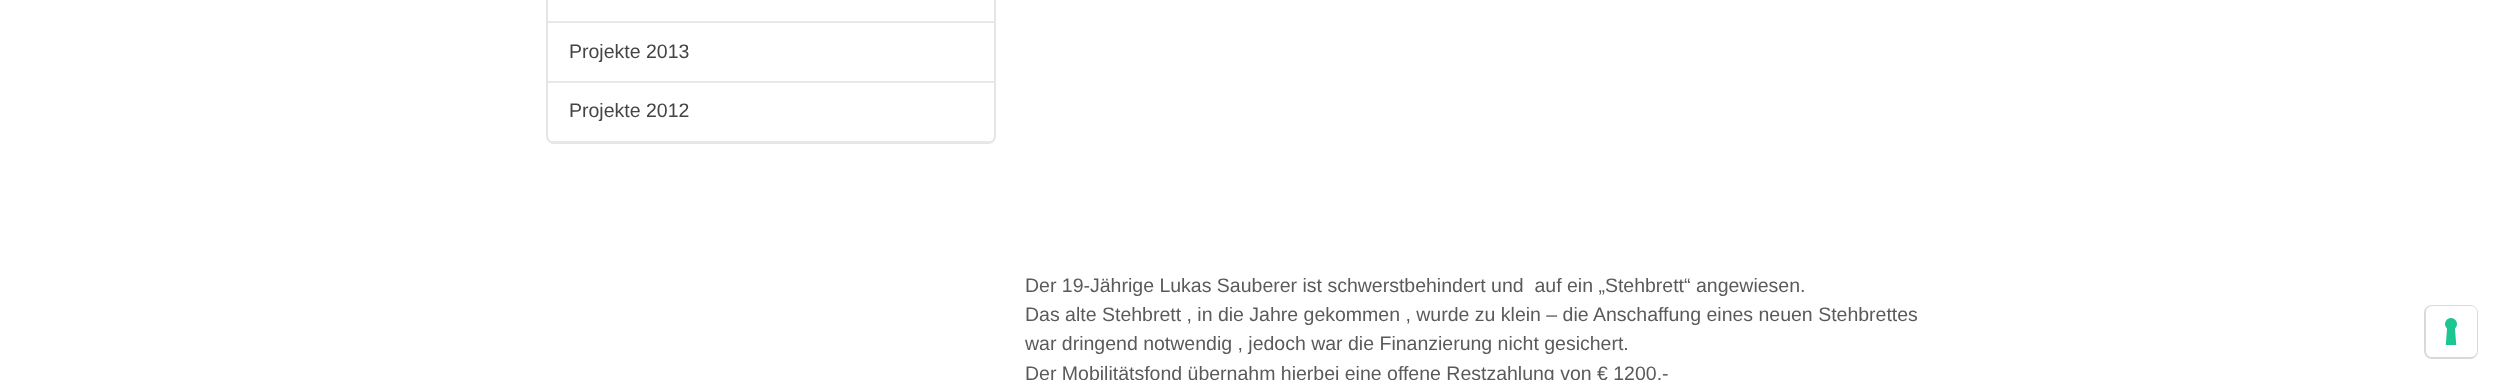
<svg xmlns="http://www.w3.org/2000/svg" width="2500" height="380">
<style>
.a{font:19.5px Liberation Sans;fill:#444}
.b{font:19.5px Liberation Sans;fill:#5a5a5a}
</style>
<defs>
<clipPath id="clip1"><rect x="548" y="-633" width="447" height="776" rx="6"/></clipPath>
</defs>
<rect width="100%" height="100%" fill="#fff"/>
<rect fill="none" stroke="#e5e5e5" stroke-width="2" x="547" y="-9" width="448" height="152" rx="7"/>
<path fill="#e8e8e8" d="M548 21h447v2H548z"/>
<path fill="#e8e8e8" d="M548 81h447v2H548z"/>
<g clip-path="url(#clip1)">
<path fill="#e8e8e8" d="M548 141h447v2H548z"/>
</g>
<rect fill="none" stroke="#d9d9d9" stroke-width="2" x="2425" y="306" width="52" height="52" rx="7"/>
<rect fill="#fff" x="2426" y="306" width="51" height="51" rx="6"/>
<image href="1.png" x="2445" y="318" width="12" height="27"/>
<text class="a" x="569" y="58">Projekte 2013</text>
<text class="a" x="569" y="117">Projekte 2012</text>
<text class="b" xml:space="preserve" x="1025" y="292">Der 19-Jährige Lukas Sauberer ist schwerstbehindert und  auf ein „Stehbrett“ angewiesen.</text>
<text class="b" x="1025" y="321">Das alte Stehbrett , in die Jahre gekommen , wurde zu klein – die Anschaffung eines neuen Stehbrettes</text>
<text class="b" x="1025" y="350">war dringend notwendig , jedoch war die Finanzierung nicht gesichert.</text>
<text class="b" x="1025" y="380">Der Mobilitätsfond übernahm hierbei eine offene Restzahlung von € 1200.-</text>
</svg>
